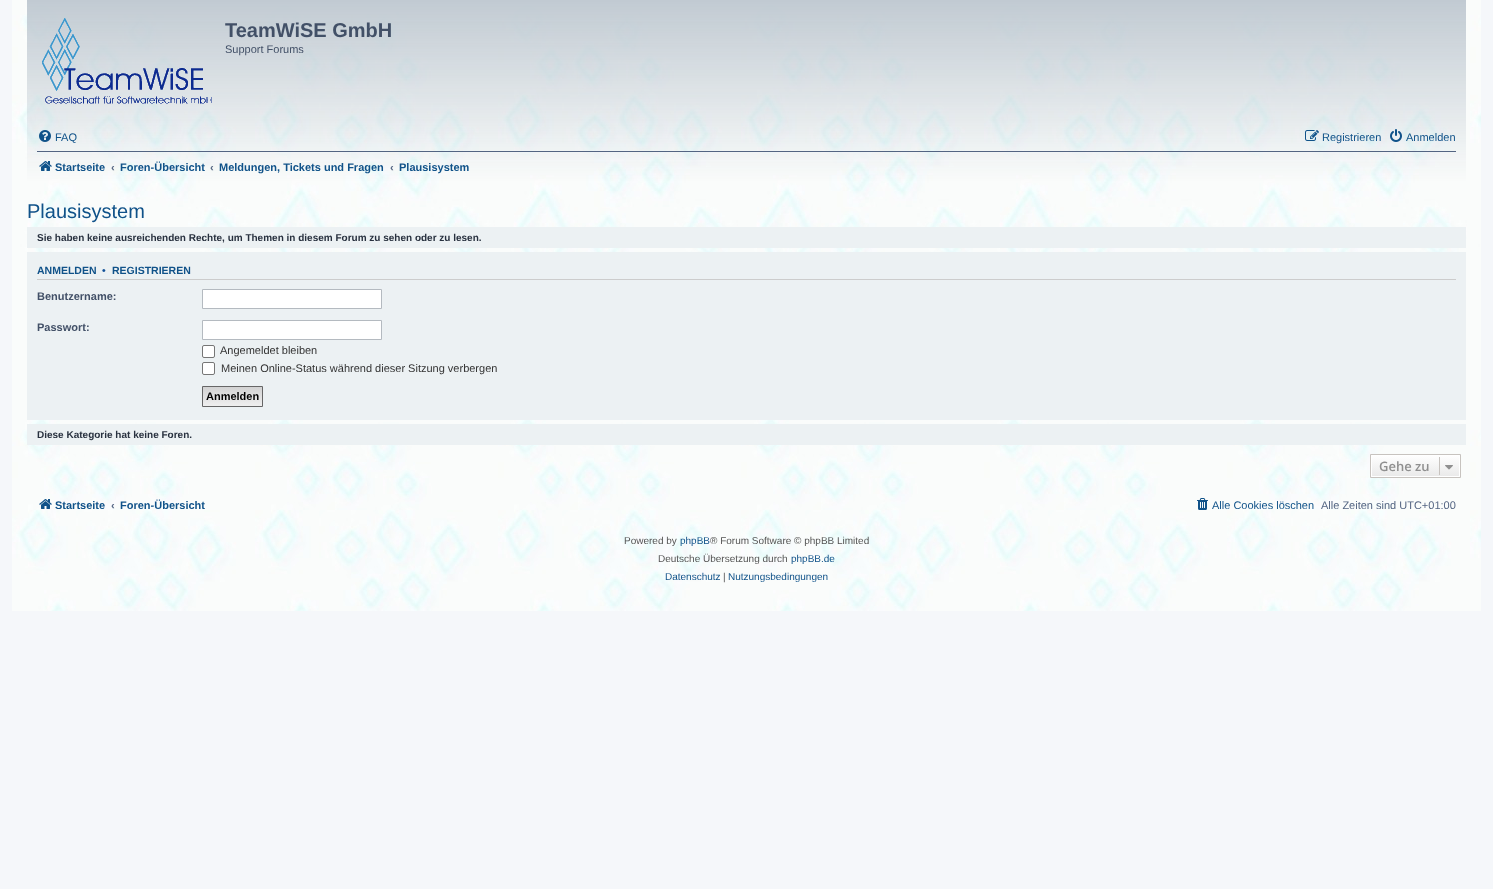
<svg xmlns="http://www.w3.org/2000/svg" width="1493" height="889">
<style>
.a{font:bold 20px Liberation Sans;fill:#425067}
.b{font:11px Liberation Sans;fill:#425067}
.c{font:11px Liberation Sans;fill:#105289}
.d{font:bold 11px Liberation Sans;fill:#105289}
.e{font:bold 11px Liberation Sans;fill:#536482}
.f{font:20px Liberation Sans;fill:#105289}
.g{font:bold 10px Liberation Sans;fill:#28313f}
.h{font:bold 10.5px Liberation Sans;fill:#105289}
.i{font:bold 10.5px Liberation Sans;fill:#115098}
.j{font:bold 11px Liberation Sans;fill:#425067}
.k{font:11px Liberation Sans;fill:#333}
.l{font:bold 11px Liberation Sans;fill:#000}
.m{font:600 13px Open Sans;fill:#8f8f8f}
.n{font:11px Liberation Sans;fill:#536482}
.o{font:10px Liberation Sans;fill:#555}
.p{font:10px Liberation Sans;fill:#105289}
</style>
<defs>
<linearGradient id="g1" gradientUnits="userSpaceOnUse" x1="233" y1="387" x2="233" y2="406"><stop offset="0" stop-color="#d2d2d2"/><stop offset="1" stop-color="#efefef"/></linearGradient>
<linearGradient id="g2" gradientUnits="userSpaceOnUse" x1="1416" y1="455" x2="1416" y2="477"><stop offset="0" stop-color="#fff"/><stop offset="1" stop-color="#e9e9e9"/></linearGradient>
</defs>
<rect width="100%" height="100%" fill="#f5f7fa"/>
<image href="1.png" x="12" y="0" width="1469" height="611"/>
<image href="2.png" x="42" y="18" width="170" height="86"/>
<image href="3.png" x="39" y="130" width="12" height="12"/>
<image href="4.png" x="1305" y="130" width="14" height="11"/>
<image href="5.png" x="1390" y="129" width="12" height="13"/>
<path fill="#536482" d="M37 151h1419v1H37z"/>
<image href="6.png" x="39" y="161" width="13" height="10"/>
<path fill="#ecf1f3" d="M27 227h1439v21H27z"/>
<path fill="#ecf1f3" d="M27 252h1439v168H27z"/>
<path fill="#ccc" d="M37 279h1419v1H37z"/>
<path fill="#fff" stroke="#b4bac0" d="M202.5 289.5h179v19H202.5z"/>
<path fill="#fff" stroke="#b4bac0" d="M202.5 320.5h179v19H202.5z"/>
<rect fill="#fff" stroke="#767676" x="202.5" y="345.5" width="12" height="12" rx="1.5"/>
<rect fill="#fff" stroke="#767676" x="202.5" y="362.5" width="12" height="12" rx="1.5"/>
<path fill="url(#g1)" d="M203 387h59v19H203z"/>
<path fill="none" stroke="#666" d="M202.5 386.5h60v20H202.5z"/>
<path fill="#ecf1f3" d="M27 424h1439v21H27z"/>
<path fill="url(#g2)" d="M1372 456h87v20H1372z"/>
<path fill="none" stroke="#fff" d="M1371.5 455.5h88v21H1371.5z"/>
<path fill="none" stroke="#c7c3bf" d="M1370.5 454.5h90v23H1370.5z"/>
<path fill="#c7c3bf" d="M1439 457h1v18H1439z"/>
<image href="7.png" x="1445" y="465" width="8" height="5"/>
<image href="8.png" x="39" y="499" width="13" height="10"/>
<image href="9.png" x="1197" y="498" width="11" height="12"/>
<text class="a" x="225" y="37">TeamWiSE GmbH</text>
<text class="b" x="225" y="53">Support Forums</text>
<text class="c" x="55" y="141">FAQ</text>
<text class="c" x="1322" y="141">Registrieren</text>
<text class="c" x="1406" y="141">Anmelden</text>
<text class="d" x="55" y="171">Startseite</text>
<text class="e" x="111" y="171">‹</text>
<text class="d" x="120" y="171">Foren-Übersicht</text>
<text class="e" x="210" y="171">‹</text>
<text class="d" x="219" y="171">Meldungen, Tickets und Fragen</text>
<text class="e" x="390" y="171">‹</text>
<text class="d" x="399" y="171">Plausisystem</text>
<text class="f" x="27" y="218">Plausisystem</text>
<text class="g" x="37" y="241">Sie haben keine ausreichenden Rechte, um Themen in diesem Forum zu sehen oder zu lesen.</text>
<text class="h" x="37" y="274">ANMELDEN</text>
<text class="i" x="102" y="274">•</text>
<text class="h" x="112" y="274">REGISTRIEREN</text>
<text class="j" x="37" y="300">Benutzername:</text>
<text class="j" x="37" y="331">Passwort:</text>
<text class="k" x="220" y="354">Angemeldet bleiben</text>
<text class="k" x="221" y="372">Meinen Online-Status während dieser Sitzung verbergen</text>
<text class="l" x="206" y="400">Anmelden</text>
<text class="g" x="37" y="438">Diese Kategorie hat keine Foren.</text>
<text class="m" x="1379" y="471">Gehe zu</text>
<text class="d" x="55" y="509">Startseite</text>
<text class="e" x="111" y="509">‹</text>
<text class="d" x="120" y="509">Foren-Übersicht</text>
<text class="c" x="1212" y="509">Alle Cookies löschen</text>
<text class="n" x="1321" y="509">Alle Zeiten sind UTC+01:00</text>
<text class="o" x="624" y="544">Powered by</text>
<text class="p" x="680" y="544">phpBB</text>
<text class="o" x="710" y="544">® Forum Software © phpBB Limited</text>
<text class="o" x="658" y="562">Deutsche Übersetzung durch</text>
<text class="p" x="791" y="562">phpBB.de</text>
<text class="p" x="665" y="580">Datenschutz</text>
<text class="o" x="723" y="580">|</text>
<text class="p" x="728" y="580">Nutzungsbedingungen</text>
</svg>
